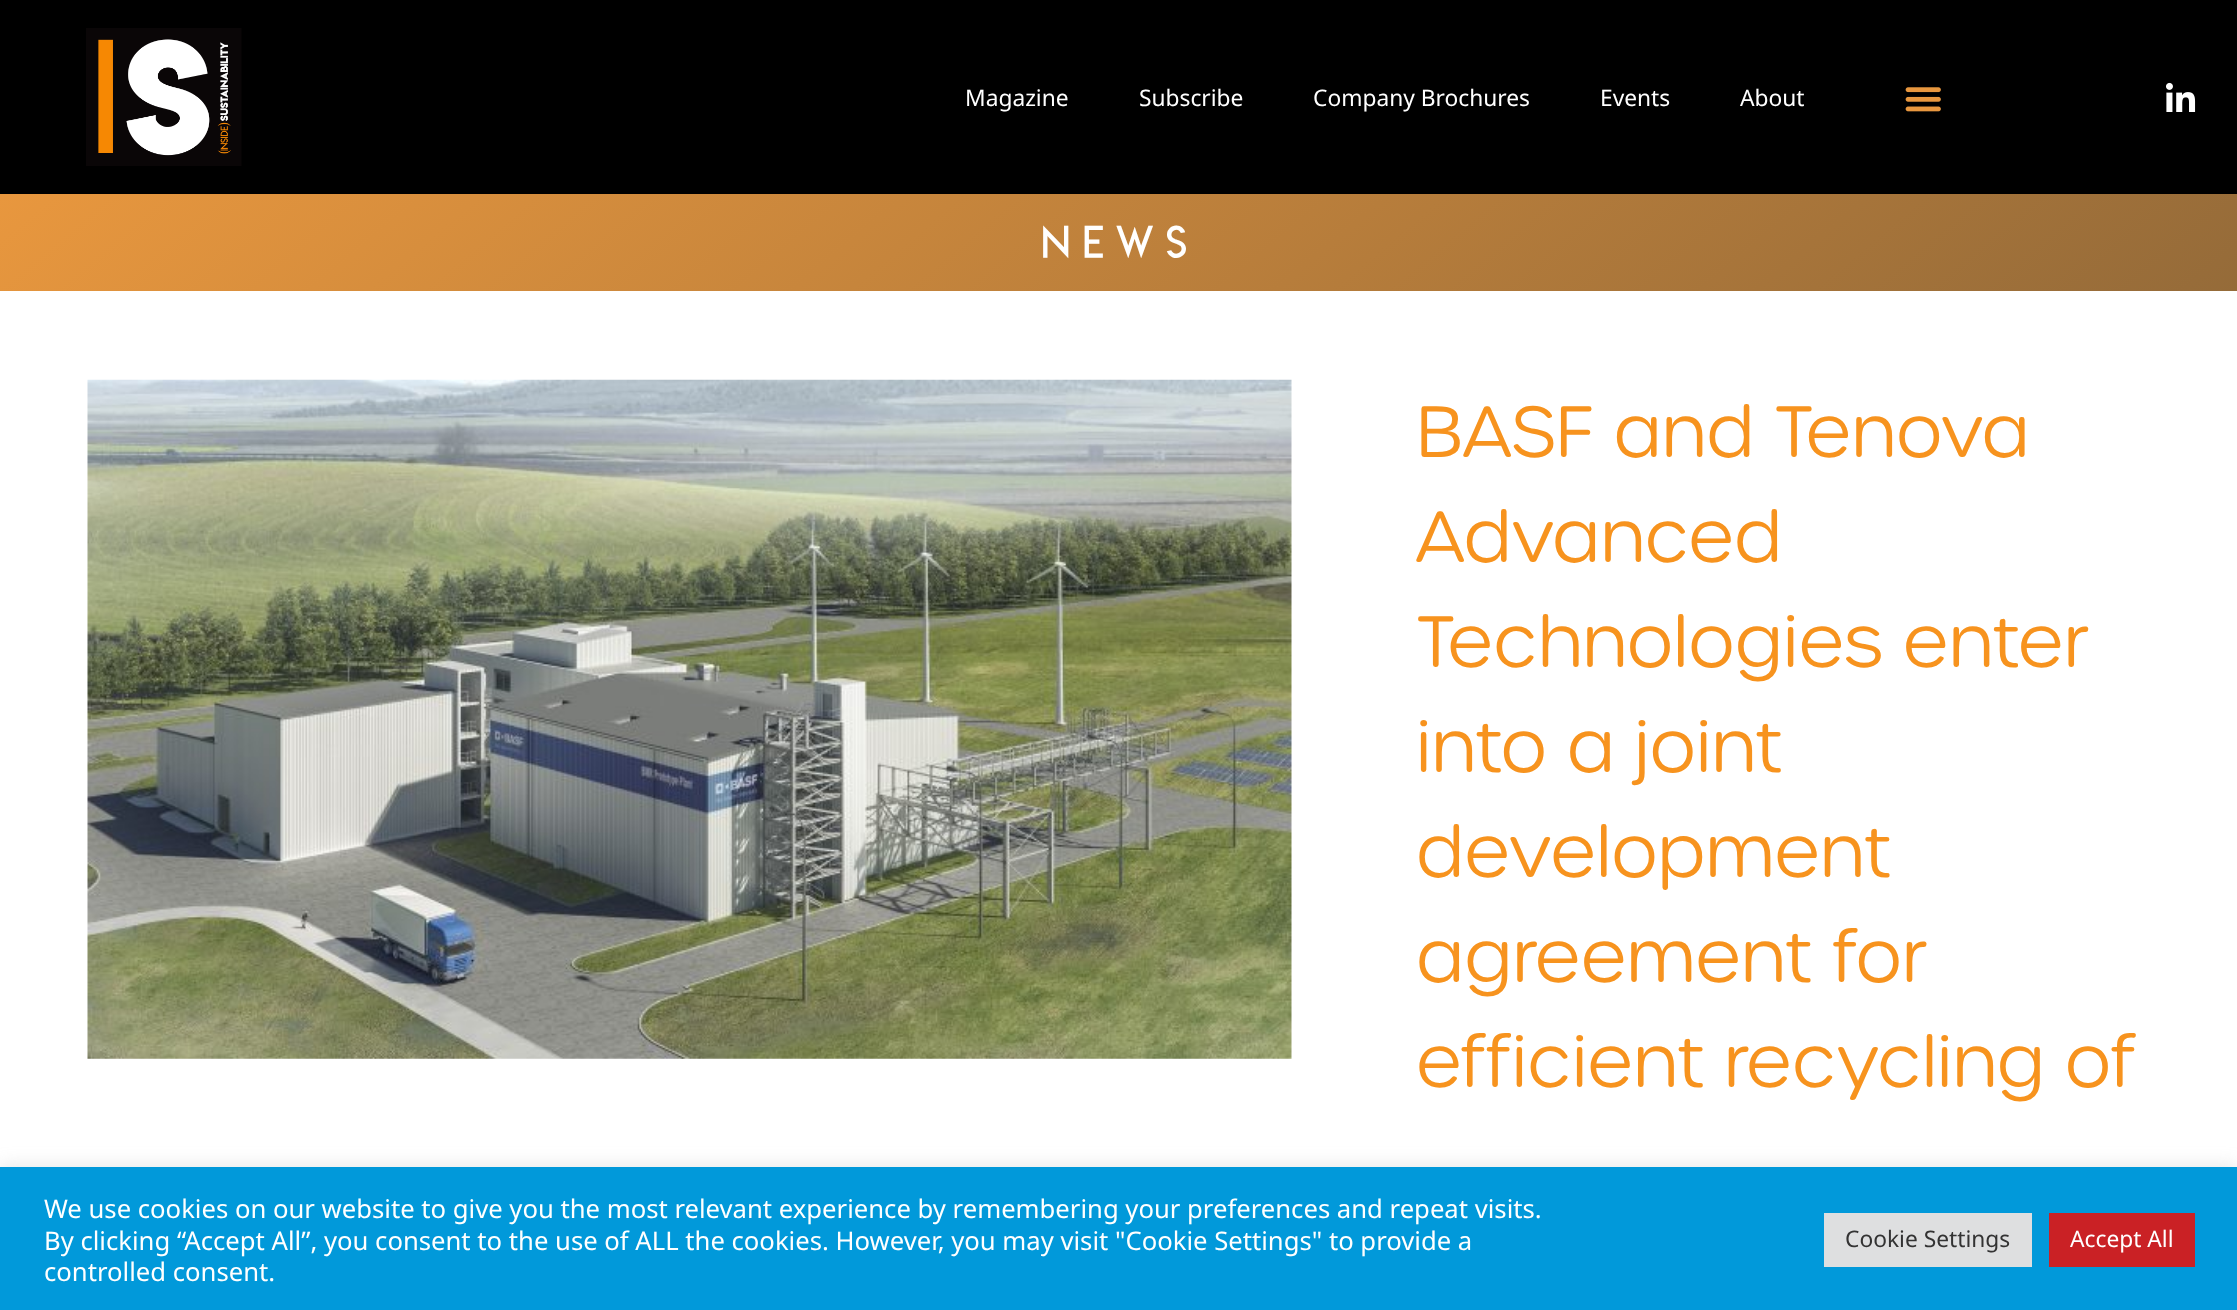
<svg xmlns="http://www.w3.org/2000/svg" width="2237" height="1310">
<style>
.a{font:22.75px Noto Sans;fill:#fff}
.b{font:300 44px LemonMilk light;letter-spacing:12px;fill:#fff}
.c{font:300 70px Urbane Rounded;fill:#f7931e}
.d{font:25.67px Noto Sans;fill:#fff}
.e{font:22.75px Noto Sans;fill:#333}
</style>
<defs>
<linearGradient id="g1" gradientUnits="userSpaceOnUse" x1="633" y1="-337" x2="1605" y2="822"><stop offset="0" stop-color="#e8973e"/><stop offset="1" stop-color="#956b39"/></linearGradient>
</defs>
<rect width="100%" height="100%" fill="#fff"/>
<path fill="#000" d="M0 0h2237v194H0z"/>
<image href="1.png" x="86" y="28" width="156" height="138"/>
<image href="2.png" x="1905" y="87" width="36" height="25"/>
<image href="3.png" x="2166" y="82" width="30" height="30"/>
<path fill="url(#g1)" d="M0 194h2237v97H0z"/>
<image href="4.png" x="87" y="379" width="1205" height="680"/>
<path fill="#acabab4d" filter="blur(9px)" d="M0 1166h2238v143H0z"/>
<path fill="#0199da" d="M0 1167h2237v143H0z"/>
<path fill="#dedfe0" d="M1824 1213h208v54H1824z"/>
<path fill="#ca2125" d="M2049 1213h146v54H2049z"/>
<text class="a" x="965" y="106">Magazine</text>
<text class="a" x="1139" y="106">Subscribe</text>
<text class="a" x="1313" y="106">Company Brochures</text>
<text class="a" x="1600" y="106">Events</text>
<text class="a" x="1740" y="106">About</text>
<text class="b" x="1041" y="259">NEWS</text>
<text class="c" x="1416" y="457">BASF and Tenova</text>
<text class="c" x="1416" y="562">Advanced</text>
<text class="c" x="1416" y="667">Technologies enter</text>
<text class="c" x="1416" y="772">into a joint</text>
<text class="c" x="1416" y="877">development</text>
<text class="c" x="1416" y="982">agreement for</text>
<text class="c" x="1416" y="1087">efficient recycling of</text>
<text class="d" x="44" y="1218">We use cookies on our website to give you the most relevant experience by remembering your preferences and repeat visits.</text>
<text class="d" x="44" y="1250">By clicking “Accept All”, you consent to the use of ALL the cookies. However, you may visit "Cookie Settings" to provide a</text>
<text class="d" x="44" y="1281">controlled consent.</text>
<text class="e" x="1845" y="1247">Cookie Settings</text>
<text class="a" x="2070" y="1247">Accept All</text>
</svg>
